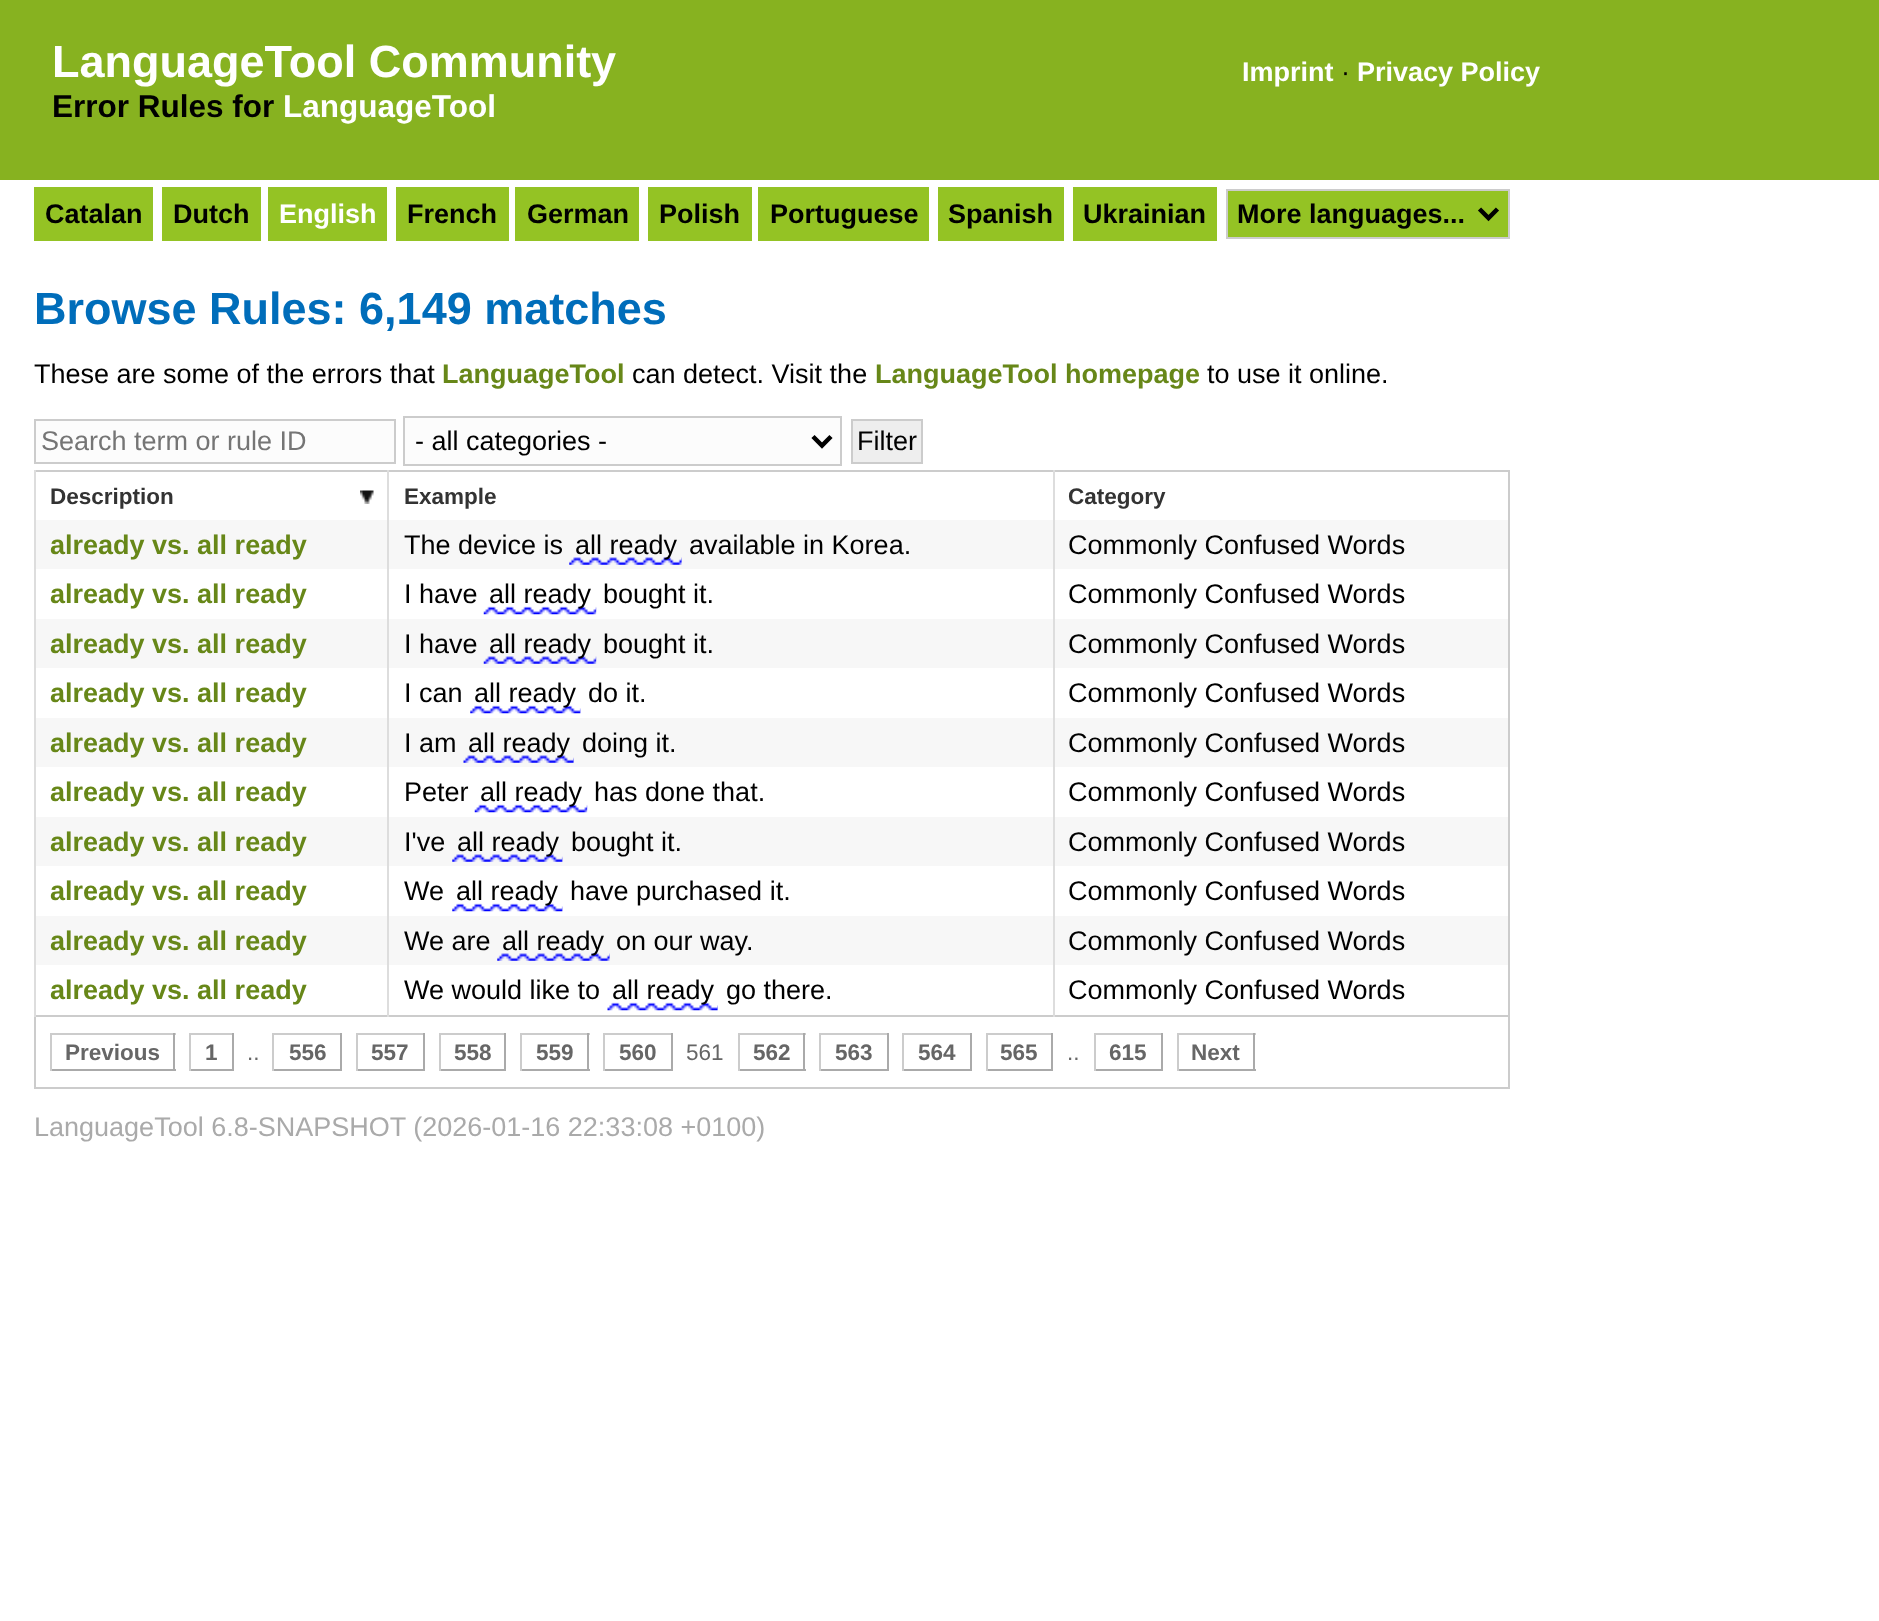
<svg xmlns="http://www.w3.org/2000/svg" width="1879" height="1621">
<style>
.a{font:bold 45px Liberation Sans;fill:#fff}
.b{font:bold 31.5px Liberation Sans;fill:#000}
.c{font:bold 31.5px Liberation Sans;fill:#fff}
.d{font:bold 27px Liberation Sans;fill:#fff}
.e{font:27px Liberation Sans;fill:#000}
.f{font:bold 27px Liberation Sans;fill:#000}
.g{font:bold 45px Liberation Sans;fill:#006dba}
.h{font:bold 27px Liberation Sans;fill:#678718}
.i{font:27px Liberation Sans;fill:#757575}
.j{font:bold 22.5px Liberation Sans;fill:#333}
.k{font:bold 22.5px Liberation Sans;fill:#666}
.l{font:22.5px Liberation Sans;fill:#666}
.m{font:27px Liberation Sans;fill:#aaa}
</style>
<rect width="100%" height="100%" fill="#fff"/>
<path fill="#87b220" d="M0 0h1879v180H0z"/>
<path fill="#94c324" d="M34 187h119v54H34z"/>
<path fill="#94c324" d="M162 187h99v54H162z"/>
<path fill="#94c324" d="M268 187h119v54H268z"/>
<path fill="#94c324" d="M396 187h113v54H396z"/>
<path fill="#94c324" d="M515 187h124v54H515z"/>
<path fill="#94c324" d="M648 187h104v54H648z"/>
<path fill="#94c324" d="M758 187h171v54H758z"/>
<path fill="#94c324" d="M938 187h126v54H938z"/>
<path fill="#94c324" d="M1073 187h144v54H1073z"/>
<path fill="#94c324" stroke="#ccc" stroke-width="2" d="M1227 190h282v48H1227z"/>
<path fill="none" stroke="#000" stroke-width="4.5" d="M1479.5 209l9 9l9-9"/>
<path fill="#fcfcfc" stroke="#ccc" stroke-width="2" d="M35 420h360v43H35z"/>
<path fill="#fcfcfc" stroke="#ccc" stroke-width="2" d="M404 417h437v48H404z"/>
<path fill="none" stroke="#000" stroke-width="4.5" d="M813 436.5l9 9l9-9"/>
<path fill="#eee" stroke="#ccc" stroke-width="2" d="M852 420h70v43H852z"/>
<path fill="#ccc" d="M34 470h1476v2H34z"/>
<path fill="#ccc" d="M1508 470h2v619H1508z"/>
<path fill="#ccc" d="M34 1015h1476v2H34z"/>
<image href="1.png" x="360" y="490" width="14" height="14"/>
<path fill="#f7f7f7" d="M36 520h1472v49H36z"/>
<image href="2.png" x="569" y="557" width="113" height="8"/>
<image href="3.png" x="483" y="606" width="114" height="9"/>
<path fill="#f7f7f7" d="M36 619h1472v49H36z"/>
<image href="4.png" x="483" y="656" width="114" height="8"/>
<image href="5.png" x="470" y="705" width="111" height="9"/>
<path fill="#f7f7f7" d="M36 718h1472v49H36z"/>
<image href="6.png" x="463" y="755" width="111" height="8"/>
<image href="7.png" x="474" y="804" width="114" height="9"/>
<path fill="#f7f7f7" d="M36 817h1472v49H36z"/>
<image href="8.png" x="452" y="854" width="111" height="8"/>
<image href="9.png" x="452" y="903" width="111" height="9"/>
<path fill="#f7f7f7" d="M36 916h1472v49H36z"/>
<image href="10.png" x="497" y="953" width="113" height="8"/>
<path fill="#ddd" d="M34 470h2v547H34z"/>
<path fill="#ddd" d="M387 470h2v547H387z"/>
<image href="11.png" x="607" y="1002" width="111" height="9"/>
<path fill="#ddd" d="M1053 470h2v547H1053z"/>
<path fill="#ccc" d="M34 1087h1476v2H34z"/>
<path fill="#ccc" d="M34 1017h2v72H34z"/>
<path fill="#ccc" d="M50 1033h126v2H50z"/>
<path fill="#aaa" d="M173 1033h2v38H173z"/>
<path fill="#aaa" d="M50 1069h126v2H50z"/>
<path fill="#ccc" d="M50 1033h2v38H50z"/>
<path fill="#ccc" d="M189 1033h45v2H189z"/>
<path fill="#aaa" d="M232 1033h2v38H232z"/>
<path fill="#aaa" d="M189 1069h45v2H189z"/>
<path fill="#ccc" d="M189 1033h2v38H189z"/>
<path fill="#ccc" d="M272 1033h70v2H272z"/>
<path fill="#aaa" d="M340 1033h2v38H340z"/>
<path fill="#aaa" d="M272 1069h70v2H272z"/>
<path fill="#ccc" d="M272 1033h2v38H272z"/>
<path fill="#ccc" d="M356 1033h69v2H356z"/>
<path fill="#aaa" d="M423 1033h2v38H423z"/>
<path fill="#aaa" d="M356 1069h69v2H356z"/>
<path fill="#ccc" d="M356 1033h2v38H356z"/>
<path fill="#ccc" d="M439 1033h67v2H439z"/>
<path fill="#aaa" d="M504 1033h2v38H504z"/>
<path fill="#aaa" d="M439 1069h67v2H439z"/>
<path fill="#ccc" d="M439 1033h2v38H439z"/>
<path fill="#ccc" d="M520 1033h70v2H520z"/>
<path fill="#aaa" d="M587 1033h2v38H587z"/>
<path fill="#aaa" d="M520 1069h70v2H520z"/>
<path fill="#ccc" d="M520 1033h2v38H520z"/>
<path fill="#ccc" d="M603 1033h70v2H603z"/>
<path fill="#aaa" d="M671 1033h2v38H671z"/>
<path fill="#aaa" d="M603 1069h70v2H603z"/>
<path fill="#ccc" d="M603 1033h2v38H603z"/>
<path fill="#ccc" d="M738 1033h68v2H738z"/>
<path fill="#aaa" d="M803 1033h2v38H803z"/>
<path fill="#aaa" d="M738 1069h68v2H738z"/>
<path fill="#ccc" d="M738 1033h2v38H738z"/>
<path fill="#ccc" d="M819 1033h70v2H819z"/>
<path fill="#aaa" d="M887 1033h2v38H887z"/>
<path fill="#aaa" d="M819 1069h70v2H819z"/>
<path fill="#ccc" d="M819 1033h2v38H819z"/>
<path fill="#ccc" d="M902 1033h70v2H902z"/>
<path fill="#aaa" d="M970 1033h2v38H970z"/>
<path fill="#aaa" d="M902 1069h70v2H902z"/>
<path fill="#ccc" d="M902 1033h2v38H902z"/>
<path fill="#ccc" d="M986 1033h67v2H986z"/>
<path fill="#aaa" d="M1051 1033h2v38H1051z"/>
<path fill="#aaa" d="M986 1069h67v2H986z"/>
<path fill="#ccc" d="M986 1033h2v38H986z"/>
<path fill="#ccc" d="M1094 1033h69v2H1094z"/>
<path fill="#aaa" d="M1161 1033h2v38H1161z"/>
<path fill="#aaa" d="M1094 1069h69v2H1094z"/>
<path fill="#ccc" d="M1094 1033h2v38H1094z"/>
<path fill="#ccc" d="M1177 1033h79v2H1177z"/>
<path fill="#aaa" d="M1253 1033h2v38H1253z"/>
<path fill="#aaa" d="M1177 1069h79v2H1177z"/>
<path fill="#ccc" d="M1177 1033h2v38H1177z"/>
<text class="a" x="52" y="77">LanguageTool Community</text>
<text class="b" x="52" y="117">Error Rules for</text>
<text class="c" x="283" y="117">LanguageTool</text>
<text class="d" x="1242" y="81">Imprint</text>
<text class="e" x="1341" y="81">·</text>
<text class="d" x="1357" y="81">Privacy Policy</text>
<text class="f" x="45" y="223">Catalan</text>
<text class="f" x="173" y="223">Dutch</text>
<text class="d" x="279" y="223">English</text>
<text class="f" x="407" y="223">French</text>
<text class="f" x="527" y="223">German</text>
<text class="f" x="659" y="223">Polish</text>
<text class="f" x="770" y="223">Portuguese</text>
<text class="f" x="948" y="223">Spanish</text>
<text class="f" x="1083" y="223">Ukrainian</text>
<text class="f" x="1237" y="223">More languages...</text>
<text class="g" x="34" y="324">Browse Rules: 6,149 matches</text>
<text class="e" x="34" y="383">These are some of the errors that</text>
<text class="h" x="442" y="383">LanguageTool</text>
<text class="e" x="632" y="383">can detect. Visit the</text>
<text class="h" x="875" y="383">LanguageTool homepage</text>
<text class="e" x="1207" y="383">to use it online.</text>
<text class="i" x="41" y="450">Search term or rule ID</text>
<text class="e" x="415" y="450">- all categories -</text>
<text class="e" x="857" y="450">Filter</text>
<text class="j" x="50" y="504">Description</text>
<text class="j" x="404" y="504">Example</text>
<text class="j" x="1068" y="504">Category</text>
<text class="h" x="50" y="554">already vs. all ready</text>
<text class="e" x="404" y="554">The device is</text>
<text class="e" x="575" y="554">all ready</text>
<text class="e" x="689" y="554">available in Korea.</text>
<text class="e" x="1068" y="554">Commonly Confused Words</text>
<text class="h" x="50" y="603">already vs. all ready</text>
<text class="e" x="404" y="603">I have</text>
<text class="e" x="489" y="603">all ready</text>
<text class="e" x="603" y="603">bought it.</text>
<text class="e" x="1068" y="603">Commonly Confused Words</text>
<text class="h" x="50" y="653">already vs. all ready</text>
<text class="e" x="404" y="653">I have</text>
<text class="e" x="489" y="653">all ready</text>
<text class="e" x="603" y="653">bought it.</text>
<text class="e" x="1068" y="653">Commonly Confused Words</text>
<text class="h" x="50" y="702">already vs. all ready</text>
<text class="e" x="404" y="702">I can</text>
<text class="e" x="474" y="702">all ready</text>
<text class="e" x="588" y="702">do it.</text>
<text class="e" x="1068" y="702">Commonly Confused Words</text>
<text class="h" x="50" y="752">already vs. all ready</text>
<text class="e" x="404" y="752">I am</text>
<text class="e" x="468" y="752">all ready</text>
<text class="e" x="582" y="752">doing it.</text>
<text class="e" x="1068" y="752">Commonly Confused Words</text>
<text class="h" x="50" y="801">already vs. all ready</text>
<text class="e" x="404" y="801">Peter</text>
<text class="e" x="480" y="801">all ready</text>
<text class="e" x="594" y="801">has done that.</text>
<text class="e" x="1068" y="801">Commonly Confused Words</text>
<text class="h" x="50" y="851">already vs. all ready</text>
<text class="e" x="404" y="851">I've</text>
<text class="e" x="457" y="851">all ready</text>
<text class="e" x="571" y="851">bought it.</text>
<text class="e" x="1068" y="851">Commonly Confused Words</text>
<text class="h" x="50" y="900">already vs. all ready</text>
<text class="e" x="404" y="900">We</text>
<text class="e" x="456" y="900">all ready</text>
<text class="e" x="570" y="900">have purchased it.</text>
<text class="e" x="1068" y="900">Commonly Confused Words</text>
<text class="h" x="50" y="950">already vs. all ready</text>
<text class="e" x="404" y="950">We are</text>
<text class="e" x="502" y="950">all ready</text>
<text class="e" x="616" y="950">on our way.</text>
<text class="e" x="1068" y="950">Commonly Confused Words</text>
<text class="h" x="50" y="999">already vs. all ready</text>
<text class="e" x="404" y="999">We would like to</text>
<text class="e" x="612" y="999">all ready</text>
<text class="e" x="726" y="999">go there.</text>
<text class="e" x="1068" y="999">Commonly Confused Words</text>
<text class="k" x="65" y="1060">Previous</text>
<text class="k" x="205" y="1060">1</text>
<text class="l" x="247" y="1060">..</text>
<text class="k" x="289" y="1060">556</text>
<text class="k" x="371" y="1060">557</text>
<text class="k" x="454" y="1060">558</text>
<text class="k" x="536" y="1060">559</text>
<text class="k" x="619" y="1060">560</text>
<text class="l" x="686" y="1060">561</text>
<text class="k" x="753" y="1060">562</text>
<text class="k" x="835" y="1060">563</text>
<text class="k" x="918" y="1060">564</text>
<text class="k" x="1000" y="1060">565</text>
<text class="l" x="1067" y="1060">..</text>
<text class="k" x="1109" y="1060">615</text>
<text class="k" x="1191" y="1060">Next</text>
<text class="m" x="34" y="1136">LanguageTool 6.8-SNAPSHOT (2026-01-16 22:33:08 +0100)</text>
</svg>
